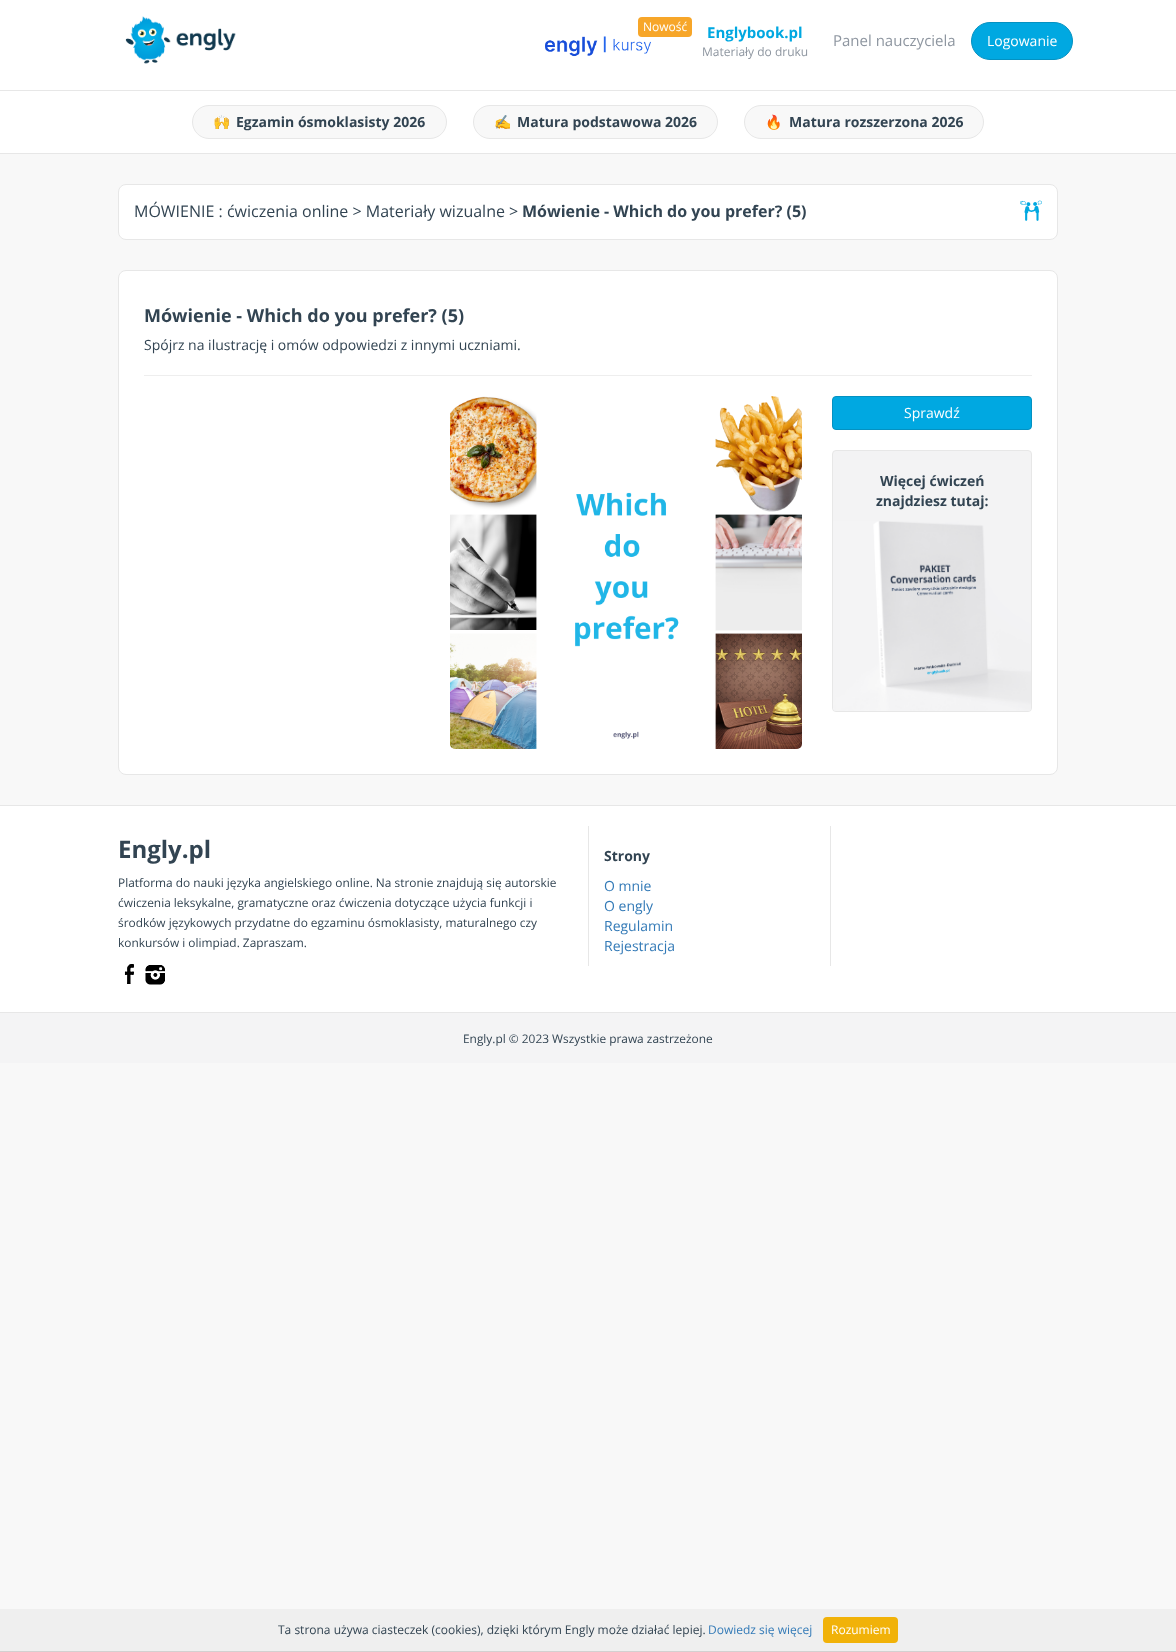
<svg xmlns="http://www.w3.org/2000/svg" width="1176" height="1652">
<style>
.a{font:12px Open Sans;fill:#fff}
.b{font:bold 15px Open Sans;fill:#00a8e1}
.c{font:12px Open Sans;fill:#8e96a0}
.d{font:15px Open Sans;fill:#8e96a0}
.e{font:14px Open Sans;fill:#fff}
.f{font:bold 14px Noto Color Emoji;fill:#324452}
.g{font:bold 14px Open Sans;fill:#324452}
.h{font:16px Open Sans;fill:#324452}
.i{font:bold 16px Open Sans;fill:#324452}
.j{font:bold 18px Open Sans;fill:#324452}
.k{font:14px Open Sans;fill:#324452}
.l{font:bold 24px Open Sans;fill:#324452}
.m{font:11.9px Open Sans;fill:#324452}
.n{font:14px Open Sans;fill:#337ab7}
.o{font:12px Open Sans;fill:#324452}
.p{font:12px Open Sans;fill:#337ab7}
</style>
<rect width="100%" height="100%" fill="#f8f8f8"/>
<path fill="#fff" d="M0 0h1176v90H0z"/>
<path fill="#e7e7e7" d="M0 90h1176v1H0z"/>
<image href="1.png" x="125" y="16" width="111" height="48"/>
<image href="2.png" x="545" y="36" width="106" height="21"/>
<rect fill="#f7a629" x="638" y="17" width="54" height="20" rx="4"/>
<rect fill="#00a8e1" stroke="#0491c1" x="971.5" y="22.5" width="101" height="37" rx="18.5"/>
<path fill="#fff" d="M0 91h1176v62H0z"/>
<path fill="#e7e7e7" d="M0 153h1176v1H0z"/>
<rect fill="#f8f8f8" stroke="#e7e7e7" x="192.5" y="105.5" width="254" height="33" rx="16.5"/>
<rect fill="#f8f8f8" stroke="#e7e7e7" x="473.5" y="105.5" width="244" height="33" rx="16.5"/>
<rect fill="#f8f8f8" stroke="#e7e7e7" x="744.5" y="105.5" width="239" height="33" rx="16.5"/>
<rect fill="#fff" stroke="#e7e7e7" x="118.5" y="184.5" width="939" height="55" rx="7.5"/>
<image href="3.png" x="1020" y="200" width="22" height="21"/>
<rect fill="#fff" stroke="#e7e7e7" x="118.5" y="270.5" width="939" height="504" rx="7.5"/>
<path fill="#eee" d="M144 375h888v1H144z"/>
<image href="4.png" x="450" y="396" width="352" height="353"/>
<rect fill="#00a8e1" stroke="#0491c1" x="832.5" y="396.5" width="199" height="33" rx="3.5"/>
<rect fill="#f3f3f4" stroke="#e7e7e7" x="832.5" y="450.5" width="199" height="261" rx="3.5"/>
<image href="5.png" x="833" y="521" width="198" height="190"/>
<path fill="#fff" d="M0 806h1176v206H0z"/>
<path fill="#e7e7e7" d="M0 805h1176v1H0z"/>
<path fill="#e7e7e7" d="M0 1012h1176v1H0z"/>
<image href="6.png" x="124" y="964" width="10" height="20"/>
<image href="7.png" x="145" y="965" width="20" height="20"/>
<path fill="#e7e7e7" d="M830 826h1v140H830z"/>
<path fill="#e7e7e7" d="M588 826h1v140H588z"/>
<path fill="#f4f4f5" d="M0 1013h1176v50H0z"/>
<path fill="#efefef" d="M0 1609h1176v42H0z"/>
<path fill="#d3d0d0" d="M0 1651h1176v1H0z"/>
<rect fill="#f1b209" x="823" y="1617" width="75" height="26" rx="4"/>
<text class="a" x="643" y="31">Nowość</text>
<text class="b" x="707" y="38">Englybook.pl</text>
<text class="c" x="702" y="56">Materiały do druku</text>
<text class="d" x="833" y="46">Panel nauczyciela</text>
<text class="e" x="987" y="46">Logowanie</text>
<text class="f" x="213" y="127">🙌</text>
<text class="g" x="236" y="127">Egzamin ósmoklasisty 2026</text>
<text class="f" x="494" y="127">✍️</text>
<text class="g" x="517" y="127">Matura podstawowa 2026</text>
<text class="f" x="765" y="127">🔥</text>
<text class="g" x="789" y="127">Matura rozszerzona 2026</text>
<text class="h" x="134" y="217">MÓWIENIE : ćwiczenia online &gt; Materiały wizualne &gt;</text>
<text class="i" x="522" y="217">Mówienie - Which do you prefer? (5)</text>
<text class="j" x="144" y="322">Mówienie - Which do you prefer? (5)</text>
<text class="k" x="144" y="350">Spójrz na ilustrację i omów odpowiedzi z innymi uczniami.</text>
<text class="e" x="904" y="418">Sprawdź</text>
<text class="g" x="880" y="486">Więcej ćwiczeń</text>
<text class="g" x="876" y="506">znajdziesz tutaj:</text>
<text class="l" x="118" y="858">Engly.pl</text>
<text class="m" x="118" y="887">Platforma do nauki języka angielskiego online. Na stronie znajdują się autorskie</text>
<text class="m" x="118" y="907">ćwiczenia leksykalne, gramatyczne oraz ćwiczenia dotyczące użycia funkcji i</text>
<text class="m" x="118" y="927">środków językowych przydatne do egzaminu ósmoklasisty, maturalnego czy</text>
<text class="m" x="118" y="947">konkursów i olimpiad. Zapraszam.</text>
<text class="g" x="604" y="861">Strony</text>
<text class="n" x="604" y="891">O mnie</text>
<text class="n" x="604" y="911">O engly</text>
<text class="n" x="604" y="931">Regulamin</text>
<text class="n" x="604" y="951">Rejestracja</text>
<text class="m" x="463" y="1043">Engly.pl © 2023 Wszystkie prawa zastrzeżone</text>
<text class="o" x="278" y="1634">Ta strona używa ciasteczek (cookies), dzięki którym Engly może działać lepiej.</text>
<text class="p" x="708" y="1634">Dowiedz się więcej</text>
<text class="a" x="831" y="1634">Rozumiem</text>
</svg>
